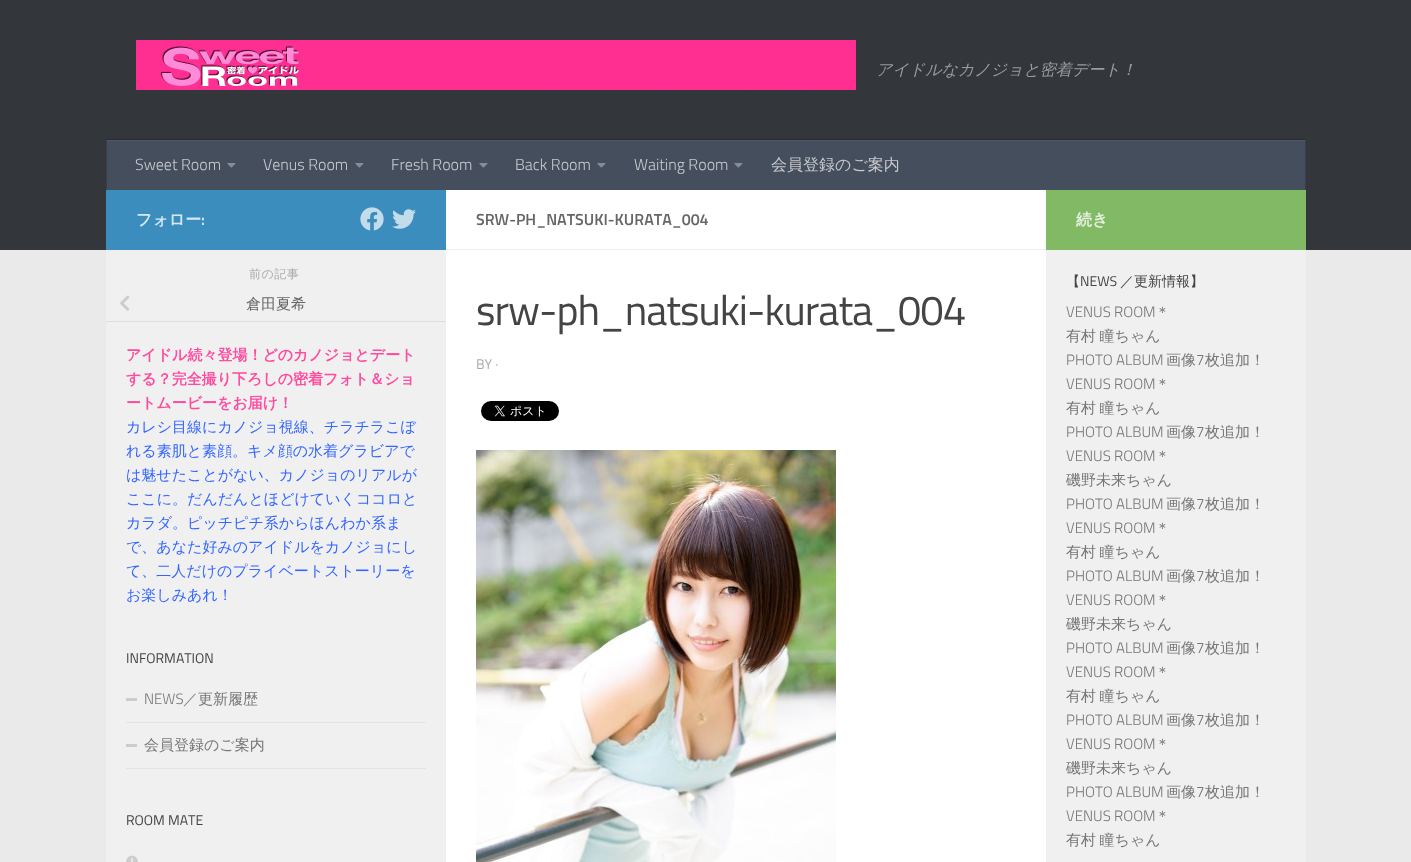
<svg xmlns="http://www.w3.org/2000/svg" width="1411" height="862">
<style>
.a{font:italic 500 16px WenQuanYi Zen Hei;fill:#999b9d}
.b{font:300 16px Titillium;fill:#c7cace}
.c{font:500 16px WenQuanYi Zen Hei;fill:#c7cace}
.d{font:bold 16px WenQuanYi Zen Hei;fill:#d8e8f2}
.e{font:600 16px Titillium;fill:#d8e8f2}
.f{font:500 12px WenQuanYi Zen Hei;letter-spacing:0.5px;fill:#aaa}
.g{font:500 15px WenQuanYi Zen Hei;fill:#666}
.h{font:bold 15px WenQuanYi Zen Hei;fill:#ff4a9e}
.i{font:500 15px WenQuanYi Zen Hei;fill:#36f}
.j{font:14px Titillium;fill:#444}
.k{font:300 15px Titillium;fill:#777}
.l{font:500 15px WenQuanYi Zen Hei;fill:#777}
.m{font:600 16px Titillium;fill:#666}
.n{font:42px Titillium;letter-spacing:-1px;fill:#444}
.o{font:14px Titillium;fill:#aaa}
.p{font:bold 16px WenQuanYi Zen Hei;fill:#e6f1e0}
.q{font:500 14px WenQuanYi Zen Hei;fill:#444}
</style>
<rect width="100%" height="100%" fill="#eaeaea"/>
<path fill="#33363b" d="M0 0h1411v250H0z"/>
<image href="1.png" x="136" y="40" width="720" height="50"/>
<path fill="#292b2f" d="M106 139h1200v1H106z"/>
<path fill="#454e5c" d="M107 141h1198v49H107z"/>
<path fill="#4e5764" d="M106 140h1200v1H106z"/>
<path fill="#373e4a" d="M1305 140h1v50H1305z"/>
<path fill="#414853" d="M1305 140h1v1H1305z"/>
<path fill="#373e4a" d="M106 140h1v50H106z"/>
<path fill="#414853" d="M106 140h1v1H106z"/>
<image href="2.png" x="227" y="163" width="9" height="5"/>
<image href="2.png" x="355" y="163" width="9" height="5"/>
<image href="2.png" x="479" y="163" width="9" height="5"/>
<image href="2.png" x="597" y="163" width="9" height="5"/>
<image href="2.png" x="734" y="163" width="9" height="5"/>
<path fill="#fff" d="M446 190h600v672H446z"/>
<path fill="#3b8dbd" d="M106 190h340v60H106z"/>
<image href="3.png" x="360" y="207" width="24" height="24"/>
<image href="4.png" x="392" y="209" width="24" height="20"/>
<path fill="#f0f0f0" d="M106 250h340v612H106z"/>
<path fill="#ddd" d="M106 321h340v1H106z"/>
<image href="5.png" x="120" y="295" width="10" height="16"/>
<path fill="#e4e4e4" d="M126 722h300v1H126z"/>
<path fill="#ccc" d="M126 698h11v3H126z"/>
<path fill="#e4e4e4" d="M126 768h300v1H126z"/>
<path fill="#ccc" d="M126 744h11v3H126z"/>
<image href="6.png" x="126" y="855" width="12" height="7"/>
<path fill="#eee" d="M446 249h600v1H446z"/>
<image href="7.png" x="481" y="401" width="78" height="20"/>
<image href="8.png" x="476" y="450" width="360" height="412"/>
<path fill="#82b965" d="M1046 190h260v60H1046z"/>
<path fill="#f0f0f0" d="M1046 250h260v612H1046z"/>
<text class="a" x="876" y="75">アイドルなカノジョと密着デート！</text>
<text class="b" x="135" y="170">Sweet Room</text>
<text class="b" x="263" y="170">Venus Room</text>
<text class="b" x="391" y="170">Fresh Room</text>
<text class="b" x="515" y="170">Back Room</text>
<text class="b" x="634" y="170">Waiting Room</text>
<text class="c" x="771" y="170">会員登録のご案内</text>
<text class="d" x="136" y="225">フォロー</text>
<text class="e" x="201" y="225">:</text>
<text class="f" x="249" y="278">前の記事</text>
<text class="g" x="246" y="309">倉田夏希</text>
<text class="h" x="126" y="360">アイドル続々登場！どのカノジョとデート</text>
<text class="h" x="126" y="384">する？完全撮り下ろしの密着フォト＆ショ</text>
<text class="h" x="126" y="408">ートムービーをお届け！</text>
<text class="i" x="126" y="432">カレシ目線にカノジョ視線、チラチラこぼ</text>
<text class="i" x="126" y="456">れる素肌と素顔。キメ顔の水着グラビアで</text>
<text class="i" x="126" y="480">は魅せたことがない、カノジョのリアルが</text>
<text class="i" x="126" y="504">ここに。だんだんとほどけていくココロと</text>
<text class="i" x="126" y="528">カラダ。ピッチピチ系からほんわか系ま</text>
<text class="i" x="126" y="552">で、あなた好みのアイドルをカノジョにし</text>
<text class="i" x="126" y="576">て、二人だけのプライベートストーリーを</text>
<text class="i" x="126" y="600">お楽しみあれ！</text>
<text class="j" x="126" y="663">INFORMATION</text>
<text class="k" x="144" y="704">NEWS</text>
<text class="l" x="183" y="704">／更新履歴</text>
<text class="l" x="144" y="750">会員登録のご案内</text>
<text class="j" x="126" y="825">ROOM MATE</text>
<text class="m" x="476" y="225">SRW-PH_NATSUKI-KURATA_004</text>
<text class="n" x="476" y="325">srw-ph_natsuki-kurata_004</text>
<text class="o" x="476" y="369">BY ·</text>
<text class="p" x="1076" y="225">続き</text>
<text class="q" x="1066" y="286">【</text>
<text class="j" x="1080" y="286">NEWS</text>
<text class="q" x="1120" y="286">／更新情報】</text>
<text class="k" x="1066" y="317">VENUS ROOM</text>
<text class="l" x="1155" y="317">＊</text>
<text class="l" x="1066" y="341" word-spacing="-1">有村 瞳ちゃん</text>
<text class="k" x="1066" y="365">PHOTO ALBUM</text>
<text class="l" x="1166" y="365">画像</text>
<text class="k" x="1196" y="365">7</text>
<text class="l" x="1205" y="365">枚追加！</text>
<text class="k" x="1066" y="389">VENUS ROOM</text>
<text class="l" x="1155" y="389">＊</text>
<text class="l" x="1066" y="413" word-spacing="-1">有村 瞳ちゃん</text>
<text class="k" x="1066" y="437">PHOTO ALBUM</text>
<text class="l" x="1166" y="437">画像</text>
<text class="k" x="1196" y="437">7</text>
<text class="l" x="1205" y="437">枚追加！</text>
<text class="k" x="1066" y="461">VENUS ROOM</text>
<text class="l" x="1155" y="461">＊</text>
<text class="l" x="1066" y="485">磯野未来ちゃん</text>
<text class="k" x="1066" y="509">PHOTO ALBUM</text>
<text class="l" x="1166" y="509">画像</text>
<text class="k" x="1196" y="509">7</text>
<text class="l" x="1205" y="509">枚追加！</text>
<text class="k" x="1066" y="533">VENUS ROOM</text>
<text class="l" x="1155" y="533">＊</text>
<text class="l" x="1066" y="557" word-spacing="-1">有村 瞳ちゃん</text>
<text class="k" x="1066" y="581">PHOTO ALBUM</text>
<text class="l" x="1166" y="581">画像</text>
<text class="k" x="1196" y="581">7</text>
<text class="l" x="1205" y="581">枚追加！</text>
<text class="k" x="1066" y="605">VENUS ROOM</text>
<text class="l" x="1155" y="605">＊</text>
<text class="l" x="1066" y="629">磯野未来ちゃん</text>
<text class="k" x="1066" y="653">PHOTO ALBUM</text>
<text class="l" x="1166" y="653">画像</text>
<text class="k" x="1196" y="653">7</text>
<text class="l" x="1205" y="653">枚追加！</text>
<text class="k" x="1066" y="677">VENUS ROOM</text>
<text class="l" x="1155" y="677">＊</text>
<text class="l" x="1066" y="701" word-spacing="-1">有村 瞳ちゃん</text>
<text class="k" x="1066" y="725">PHOTO ALBUM</text>
<text class="l" x="1166" y="725">画像</text>
<text class="k" x="1196" y="725">7</text>
<text class="l" x="1205" y="725">枚追加！</text>
<text class="k" x="1066" y="749">VENUS ROOM</text>
<text class="l" x="1155" y="749">＊</text>
<text class="l" x="1066" y="773">磯野未来ちゃん</text>
<text class="k" x="1066" y="797">PHOTO ALBUM</text>
<text class="l" x="1166" y="797">画像</text>
<text class="k" x="1196" y="797">7</text>
<text class="l" x="1205" y="797">枚追加！</text>
<text class="k" x="1066" y="821">VENUS ROOM</text>
<text class="l" x="1155" y="821">＊</text>
<text class="l" x="1066" y="845" word-spacing="-1">有村 瞳ちゃん</text>
</svg>
